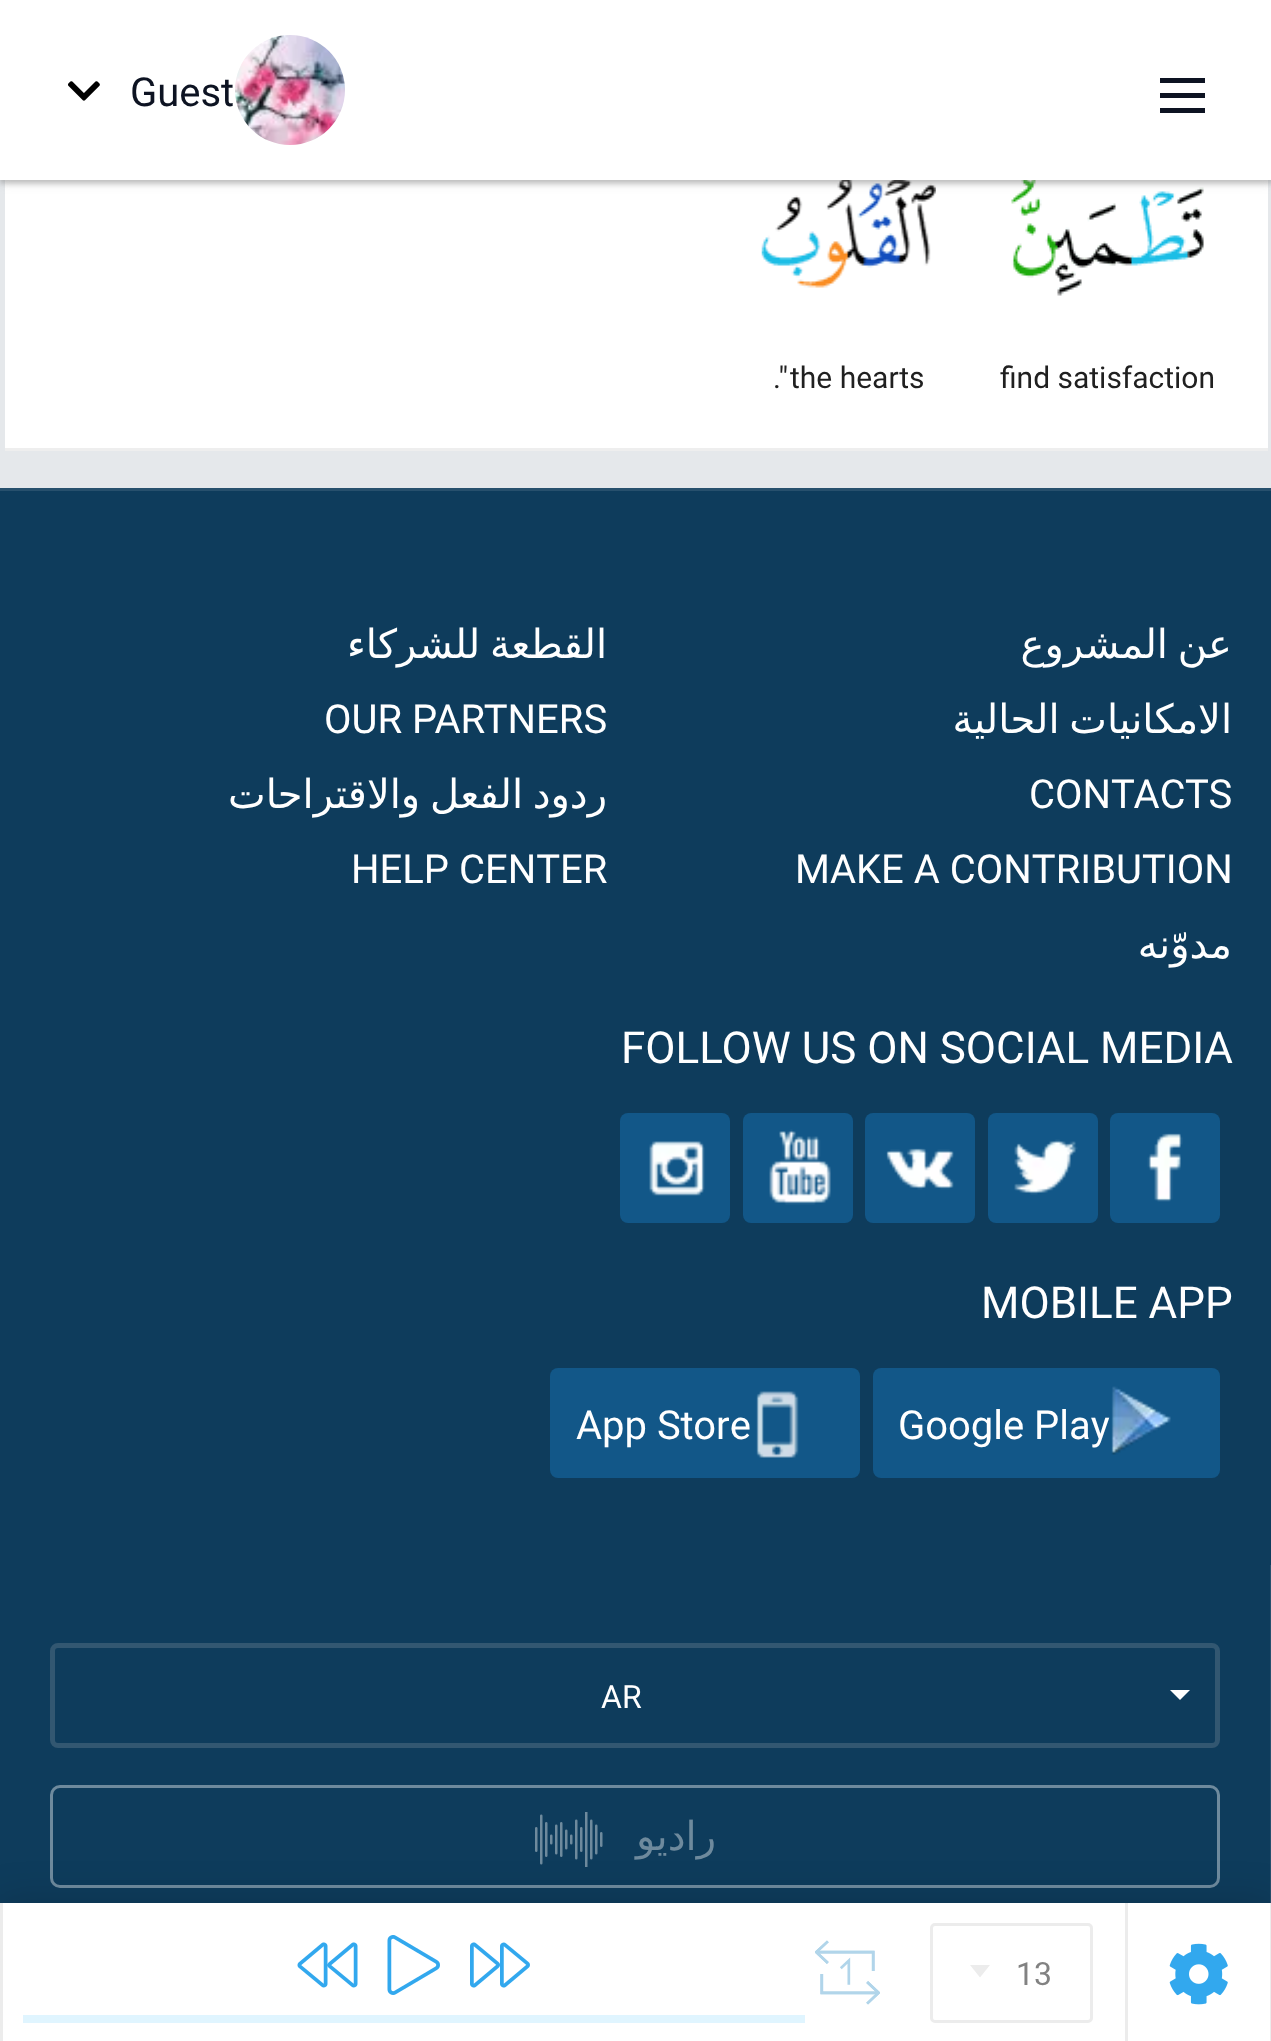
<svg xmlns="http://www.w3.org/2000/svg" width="1271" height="2041">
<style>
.a{font:40px Roboto;fill:#0d1322}
.b{font:30px Roboto;fill:#202020}
.c{font:32px Roboto;fill:#828282}
.d{font:40px DejaVu Sans;direction:rtl;fill:#fff}
.e{font:40px Roboto;fill:#fff}
.f{font:44px Roboto;fill:#fff}
.g{font:32px Roboto;fill:#fff}
.h{font:40px DejaVu Sans;direction:rtl;fill:#6e8a9d}
</style>
<rect width="100%" height="100%" fill="#e5e8eb"/>
<path fill="#fff" d="M5 180h1263v268H5z"/>
<image href="3.png" x="761" y="180" width="175" height="108"/>
<image href="4.png" x="1011" y="180" width="193" height="116"/>
<path fill="#00000033" filter="blur(2.5px)" d="M0 3h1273v180H0z"/>
<path fill="#aaaaaa80" filter="blur(5px)" d="M0 3h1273v180H0z"/>
<path fill="#fff" d="M0 0h1271v180H0z"/>
<image href="1.png" x="68" y="81" width="32" height="20"/>
<image href="2.png" x="235" y="35" width="110" height="110"/>
<path fill="#0d1322" d="M1160 78h45v5H1160z"/>
<path fill="#0d1322" d="M1160 93h45v5H1160z"/>
<path fill="#0d1322" d="M1160 108h45v5H1160z"/>
<path fill="#eee" d="M5 448h1263v3H5z"/>
<path fill="#0e3c5c" d="M0 1565h1270v338H0z"/>
<path fill="#27506d" d="M1270 1565h1v338H1270z"/>
<rect fill="none" stroke="#6e8a9d" stroke-width="3" x="51.5" y="1786.5" width="1167" height="100" rx="8.5"/>
<image href="17.png" x="535" y="1812" width="68" height="55"/>
<path fill="#00000026" filter="blur(19px)" d="M-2 1900h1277v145H-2z"/>
<path fill="#fff" d="M3 1903h1267v138H3z"/>
<path fill="#ececec" d="M0 1903h3v138H0z"/>
<image href="5.png" x="297" y="1942" width="61" height="46"/>
<image href="6.png" x="387" y="1935" width="53" height="60"/>
<image href="7.png" x="470" y="1942" width="60" height="46"/>
<path fill="#e0f5ff" d="M23 2015h782v8H23z"/>
<image href="8.png" x="815" y="1940" width="65" height="65"/>
<rect fill="none" stroke="#ececec" stroke-width="3" x="931.5" y="1924.5" width="160" height="97" rx="3.5"/>
<path fill="#ececec" d="M970 1965h20l-10 12.5z"/>
<path fill="#ececec" d="M1270 1903h1v138H1270z"/>
<path fill="#ececec" d="M1125 1903h3v138H1125z"/>
<image href="9.png" x="1169" y="1943" width="59" height="62"/>
<path fill="#0e3c5c" d="M0 491h1271v1074H0z"/>
<path fill="#27506d" d="M0 488h1271v3H0z"/>
<rect fill="#125788" x="620" y="1113" width="110" height="110" rx="8"/>
<image href="10.png" x="649" y="1141" width="56" height="55"/>
<rect fill="#125788" x="743" y="1113" width="110" height="110" rx="8"/>
<image href="11.png" x="769" y="1129" width="62" height="76"/>
<rect fill="#125788" x="865" y="1113" width="110" height="110" rx="8"/>
<image href="12.png" x="886" y="1148" width="68" height="42"/>
<rect fill="#125788" x="988" y="1113" width="110" height="110" rx="8"/>
<image href="13.png" x="1014" y="1139" width="64" height="56"/>
<rect fill="#125788" x="1110" y="1113" width="110" height="110" rx="8"/>
<image href="14.png" x="1147" y="1133" width="36" height="69"/>
<rect fill="#125788" x="550" y="1368" width="310" height="110" rx="8"/>
<image href="15.png" x="756" y="1391" width="43" height="67"/>
<rect fill="#125788" x="873" y="1368" width="347" height="110" rx="8"/>
<image href="16.png" x="1111" y="1386" width="60" height="69"/>
<rect fill="none" stroke="#325771" stroke-width="5" x="52.5" y="1645.5" width="1165" height="100" rx="5.5"/>
<path fill="#fff" d="M1170 1690h20l-10 10z"/>
<text class="a" x="130" y="106">Guest</text>
<text class="b" x="773" y="388">."</text>
<text class="b" x="790" y="388">the hearts</text>
<text class="b" x="1000" y="388">find satisfaction</text>
<text class="c" x="1016" y="1985">13</text>
<text class="d" x="607" y="658" word-spacing="-3">القطعة للشركاء</text>
<text class="e" x="324" y="733">OUR PARTNERS</text>
<text class="d" x="607" y="808" word-spacing="-3">ردود الفعل والاقتراحات</text>
<text class="e" x="351" y="883">HELP CENTER</text>
<text class="d" x="1232" y="658" word-spacing="-3">عن المشروع</text>
<text class="d" x="1232" y="733" word-spacing="-3">الامكانيات الحالية</text>
<text class="e" x="1029" y="808">CONTACTS</text>
<text class="e" x="795" y="883">MAKE A CONTRIBUTION</text>
<text class="d" x="1232" y="958">مدوّنه</text>
<text class="f" x="621" y="1063">FOLLOW US ON SOCIAL MEDIA</text>
<text class="f" x="981" y="1318">MOBILE APP</text>
<text class="e" x="576" y="1439">App Store</text>
<text class="e" x="898" y="1439">Google Play</text>
<text class="g" x="601" y="1708">AR</text>
<text class="h" x="716" y="1850">راديو</text>
</svg>
